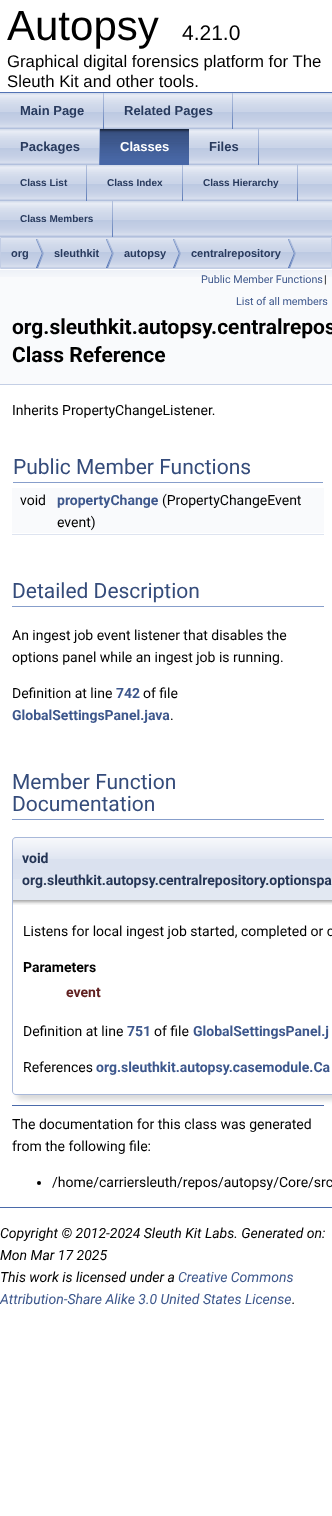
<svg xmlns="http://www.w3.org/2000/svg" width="332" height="1516">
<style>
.a{font:42px Liberation Sans;fill:#000}
.b{font:21px Liberation Sans;fill:#000}
.c{font:16.75px Liberation Sans;fill:#000}
.d{font:bold 13px Liberation Sans;fill:#283a5d}
.e{font:bold 13px Liberation Sans;fill:#fff}
.f{font:bold 10px Liberation Sans;fill:#283a5d}
.g{font:bold 11px Liberation Sans;fill:#283a5d}
.h{font:10.75px Roboto;fill:#3d578c}
.i{font:10.75px Roboto;fill:#000}
.j{font:bold 21px Roboto;fill:#000}
.k{font:14px Roboto;fill:#000}
.l{font:21px Roboto;fill:#354c7b}
.m{font:bold 14px Roboto;fill:#3d578c}
.n{font:bold 14px Roboto;fill:#253555}
.o{font:bold 14px Roboto;fill:#000}
.p{font:bold 14px Roboto;fill:#602020}
.q{font:italic 14px Roboto;fill:#000}
.r{font:italic 14px Roboto;fill:#3d578c}
</style>
<rect width="100%" height="100%" fill="#fff"/>
<path fill="#5373b4" d="M0 92h332v1H0z"/>
<image href="1.png" x="0" y="93" width="332" height="72"/>
<image href="2.png" x="103" y="93" width="1" height="36"/>
<image href="2.png" x="232" y="93" width="1" height="36"/>
<image href="2.png" x="99" y="129" width="1" height="36"/>
<image href="3.png" x="100" y="129" width="89" height="36"/>
<image href="2.png" x="258" y="129" width="1" height="36"/>
<image href="1.png" x="0" y="165" width="332" height="72"/>
<image href="2.png" x="86" y="165" width="1" height="36"/>
<image href="2.png" x="182" y="165" width="1" height="36"/>
<image href="2.png" x="297" y="165" width="1" height="36"/>
<image href="2.png" x="112" y="201" width="1" height="36"/>
<image href="4.png" x="1" y="238" width="330" height="30"/>
<path fill="none" stroke="#c2cde4" d="M0.5 237.5h331v31H0.5z"/>
<image href="5.png" x="36" y="239" width="8" height="29"/>
<image href="5.png" x="106" y="239" width="8" height="29"/>
<image href="5.png" x="173" y="239" width="8" height="29"/>
<image href="5.png" x="288" y="239" width="8" height="29"/>
<path fill="#f9fafc" d="M0 277h332v107H0z"/>
<image href="6.png" x="0" y="269" width="332" height="8"/>
<path fill="#c4cfe5" d="M0 384h332v1H0z"/>
<path fill="#879ecb" d="M13 482h310v1H13z"/>
<path fill="#f9fafc" d="M12 488h312v45H12z"/>
<path fill="#dee4f0" d="M12 534h312v1H12z"/>
<path fill="#879ecb" d="M12 606h312v1H12z"/>
<path fill="#879ecb" d="M12 819h312v1H12z"/>
<path fill="#e2e8f2" d="M16 837h316c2 0 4 2 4 4v59h-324v-59c0-2 2-4 4-4z"/>
<image href="7.png" x="12" y="838" width="320" height="41"/>
<path fill="#a8b8d9" fill-rule="evenodd" d="M16 837h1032c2 0 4 2 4 4v59h-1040v-59c0-2 2-4 4-4zm0 1h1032c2 0 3 1 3 3v59h-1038v-59c0-2 1-3 3-3z"/>
<rect fill="#00000026" filter="blur(2.5px)" x="17" y="905" width="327" height="195" rx="4"/>
<path fill="#fff" d="M12 900h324v191c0 2-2 4-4 4h-316c-2 0-4-2-4-4z"/>
<image href="8.png" x="13" y="900" width="319" height="5"/>
<path fill="#a8b8d9" fill-rule="evenodd" d="M12 900h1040v191c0 2-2 4-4 4h-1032c-2 0-4-2-4-4zm1 0h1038v191c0 2-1 3-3 3h-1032c-2 0-3-1-3-3z"/>
<path fill="#4a6aaa" d="M12 1105h312v1H12z"/>
<circle fill="#000" cx="39" cy="1183" r="2"/>
<path fill="#4a6aaa" d="M0 1207h332v1H0z"/>
<text class="a" x="7" y="40">Autopsy</text>
<text class="b" x="182" y="40">4.21.0</text>
<text class="c" x="7" y="67">Graphical digital forensics platform for The</text>
<text class="c" x="7" y="87">Sleuth Kit and other tools.</text>
<text class="d" x="20" y="115">Main Page</text>
<text class="d" x="124" y="115">Related Pages</text>
<text class="d" x="20" y="151">Packages</text>
<text class="e" x="120" y="151">Classes</text>
<text class="d" x="209" y="151">Files</text>
<text class="f" x="20" y="186">Class List</text>
<text class="f" x="107" y="186">Class Index</text>
<text class="f" x="203" y="186">Class Hierarchy</text>
<text class="f" x="20" y="222">Class Members</text>
<text class="g" x="11" y="257">org</text>
<text class="g" x="54" y="257">sleuthkit</text>
<text class="g" x="124" y="257">autopsy</text>
<text class="g" x="191" y="257">centralrepository</text>
<text class="h" x="201" y="283">Public Member Functions</text>
<text class="i" x="324" y="283">|</text>
<text class="h" x="236" y="305">List of all members</text>
<text class="j" x="12" y="334">org.sleuthkit.autopsy.centralrepos</text>
<text class="j" x="12" y="362">Class Reference</text>
<text class="k" x="12" y="415">Inherits PropertyChangeListener.</text>
<text class="l" x="13" y="474">Public Member Functions</text>
<text class="k" x="20" y="505">void</text>
<text class="m" x="57" y="505">propertyChange</text>
<text class="k" x="162" y="505">(PropertyChangeEvent</text>
<text class="k" x="57" y="527">event)</text>
<text class="l" x="12" y="598">Detailed Description</text>
<text class="k" x="12" y="640">An ingest job event listener that disables the</text>
<text class="k" x="12" y="662">options panel while an ingest job is running.</text>
<text class="k" x="12" y="698">Definition at line</text>
<text class="m" x="116" y="698">742</text>
<text class="k" x="143" y="698">of file</text>
<text class="m" x="12" y="720">GlobalSettingsPanel.java</text>
<text class="k" x="170" y="720">.</text>
<text class="l" x="12" y="789">Member Function</text>
<text class="l" x="12" y="811">Documentation</text>
<text class="n" x="22" y="863">void</text>
<text class="n" x="22" y="885">org.sleuthkit.autopsy.centralrepository.optionspa</text>
<text class="k" x="23" y="936">Listens for local ingest job started, completed or c</text>
<text class="o" x="23" y="972">Parameters</text>
<text class="p" x="66" y="997">event</text>
<text class="k" x="23" y="1036">Definition at line</text>
<text class="m" x="127" y="1036">751</text>
<text class="k" x="154" y="1036">of file</text>
<text class="m" x="193" y="1036">GlobalSettingsPanel.j</text>
<text class="k" x="23" y="1072">References</text>
<text class="m" x="96" y="1072">org.sleuthkit.autopsy.casemodule.Ca</text>
<text class="k" x="12" y="1129">The documentation for this class was generated</text>
<text class="k" x="12" y="1151">from the following file:</text>
<text class="k" x="52" y="1187">/home/carriersleuth/repos/autopsy/Core/src</text>
<text class="q" x="0" y="1238">Copyright © 2012-2024 Sleuth Kit Labs. Generated on:</text>
<text class="q" x="0" y="1260">Mon Mar 17 2025</text>
<text class="q" x="0" y="1282">This work is licensed under a</text>
<text class="r" x="178" y="1282">Creative Commons</text>
<text class="r" x="0" y="1304">Attribution-Share Alike 3.0 United States License</text>
<text class="q" x="292" y="1304">.</text>
</svg>
